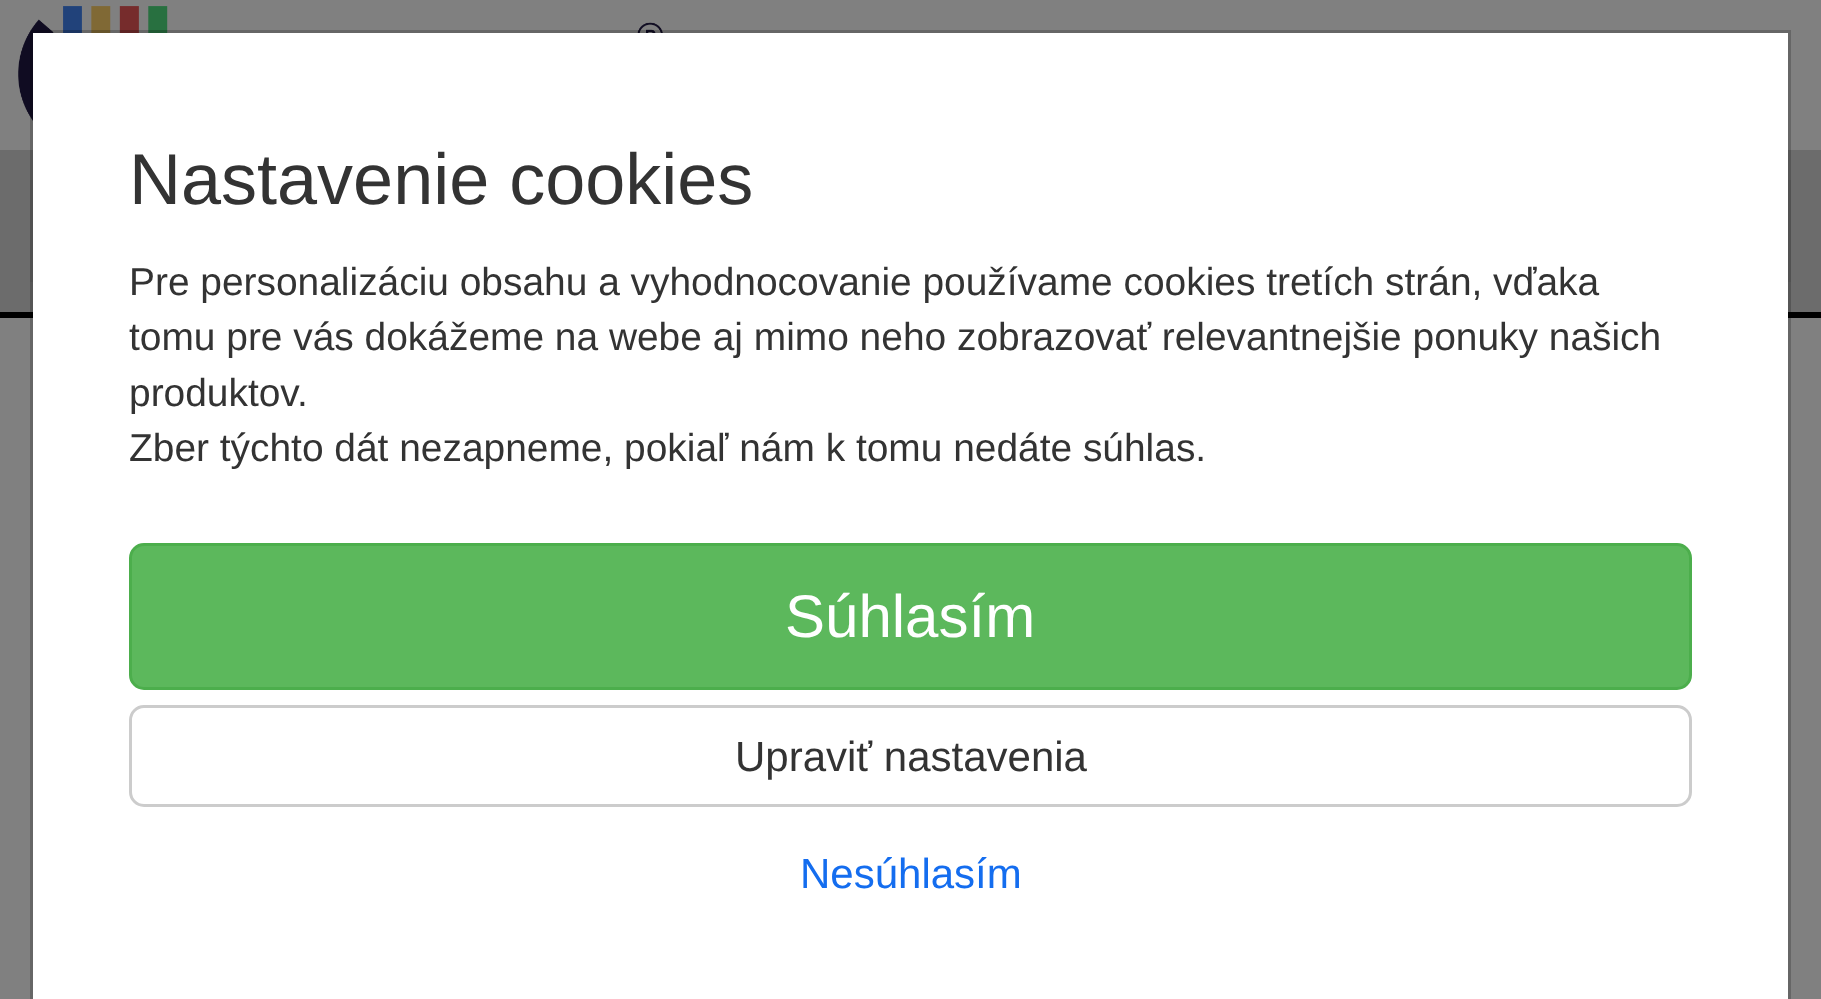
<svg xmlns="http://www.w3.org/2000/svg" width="1821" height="999">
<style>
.a{font:72px Liberation Sans;fill:#333}
.b{font:38.9px Liberation Sans;fill:#333}
.c{font:60px Liberation Sans;fill:#fff}
.d{font:42px Liberation Sans;fill:#333}
.e{font:42px Liberation Sans;fill:#146def}
</style>
<rect width="100%" height="100%" fill="#808080"/>
<image href="1.png" x="18" y="6" width="645" height="115"/>
<path fill="#000" d="M0 312h1821v6H0z"/>
<path fill="#6c6c6c" d="M0 150h1821v162H0z"/>
<path fill="none" stroke="#666" stroke-width="3" d="M31.5 181.5h1494v99H31.5z"/>
<path fill="none" stroke="#666" stroke-width="3" d="M1528.5 181.5h261v99H1528.5z"/>
<path fill="#fff" d="M33 33h1755v966H33z"/>
<path fill="none" stroke="#00000033" stroke-width="3" d="M31.5 31.5h1758v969H31.5z"/>
<rect fill="#5cb85c" stroke="#4cae4c" stroke-width="3" x="130.5" y="544.5" width="1560" height="144" rx="13.5"/>
<rect fill="none" stroke="#ccc" stroke-width="3" x="130.5" y="706.5" width="1560" height="99" rx="13.5"/>
<text class="a" x="129" y="204">Nastavenie cookies</text>
<text class="b" x="129" y="295">Pre personalizáciu obsahu a vyhodnocovanie používame cookies tretích strán, vďaka</text>
<text class="b" x="129" y="350">tomu pre vás dokážeme na webe aj mimo neho zobrazovať relevantnejšie ponuky našich</text>
<text class="b" x="129" y="406">produktov.</text>
<text class="b" x="129" y="461">Zber týchto dát nezapneme, pokiaľ nám k tomu nedáte súhlas.</text>
<text class="c" x="785" y="637">Súhlasím</text>
<text class="d" x="735" y="771">Upraviť nastavenia</text>
<text class="e" x="800" y="888">Nesúhlasím</text>
</svg>
